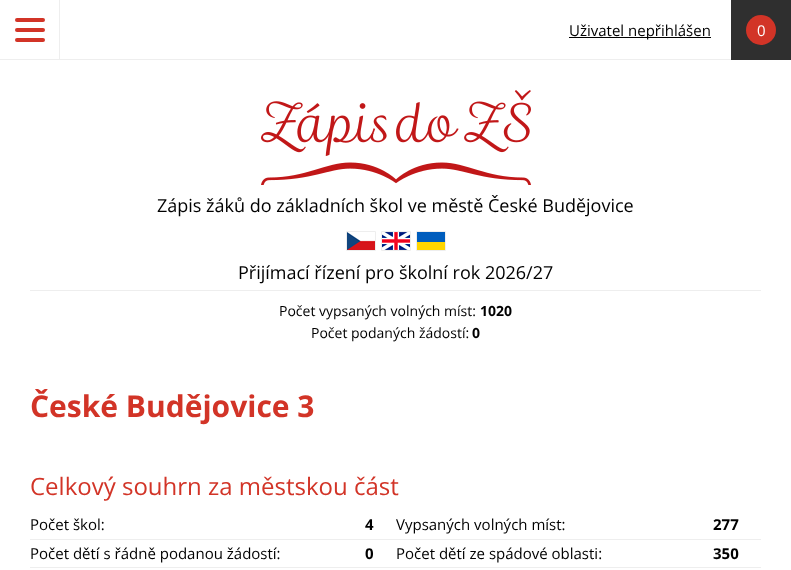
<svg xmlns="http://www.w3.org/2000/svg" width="791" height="570">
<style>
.a{font:15px Open Sans;fill:#000}
.b{font:15px Open Sans;fill:#fff}
.c{font:18px Open Sans;fill:#000}
.d{font:14px Open Sans;fill:#000}
.e{font:bold 14px Open Sans;fill:#000}
.f{font:bold 30px Open Sans;fill:#d23427}
.g{font:24px Open Sans;fill:#d23427}
.h{font:bold 15px Open Sans;fill:#000}
</style>
<rect width="100%" height="100%" fill="#fff"/>
<path fill="#eee" d="M0 59h731v1H0z"/>
<path fill="#eee" d="M59 0h1v60H59z"/>
<rect fill="#d23427" x="15" y="18" width="30" height="4" rx="2"/>
<rect fill="#d23427" x="15" y="28" width="30" height="4" rx="2"/>
<rect fill="#d23427" x="15" y="38" width="30" height="4" rx="2"/>
<path fill="#000" d="M569 37h142v1H569z"/>
<path fill="#2f2f2f" d="M731 0h60v60H731z"/>
<circle fill="#d23427" cx="761" cy="30" r="15"/>
<image href="1.png" x="261" y="90" width="270" height="95"/>
<path fill="none" stroke="#eee" d="M346.5 231.5h29v19H346.5z"/>
<image href="2.png" x="347" y="232" width="28" height="18"/>
<path fill="none" stroke="#eee" d="M381.5 231.5h29v19H381.5z"/>
<image href="3.png" x="382" y="232" width="28" height="18"/>
<path fill="none" stroke="#eee" d="M416.5 231.5h29v19H416.5z"/>
<image href="4.png" x="417" y="232" width="28" height="18"/>
<path fill="#eee" d="M30 290h731v1H30z"/>
<path fill="#eee" d="M30 539h731v1H30z"/>
<path fill="#eee" d="M30 567h731v1H30z"/>
<text class="a" x="569" y="36">Uživatel nepřihlášen</text>
<text class="b" x="757" y="36">0</text>
<text class="c" x="157" y="212">Zápis žáků do základních škol ve městě České Budějovice</text>
<text class="c" x="238" y="279">Přijímací řízení pro školní rok 2026/27</text>
<text class="d" x="279" y="316">Počet vypsaných volných míst:</text>
<text class="e" x="480" y="316">1020</text>
<text class="d" x="311" y="338">Počet podaných žádostí:</text>
<text class="e" x="472" y="338">0</text>
<text class="f" x="30" y="417">České Budějovice 3</text>
<text class="g" x="30" y="495">Celkový souhrn za městskou část</text>
<text class="a" x="30" y="530">Počet škol:</text>
<text class="h" x="365" y="530">4</text>
<text class="a" x="30" y="559">Počet dětí s řádně podanou žádostí:</text>
<text class="h" x="365" y="559">0</text>
<text class="a" x="396" y="530">Vypsaných volných míst:</text>
<text class="h" x="713" y="530">277</text>
<text class="a" x="396" y="559">Počet dětí ze spádové oblasti:</text>
<text class="h" x="713" y="559">350</text>
</svg>
